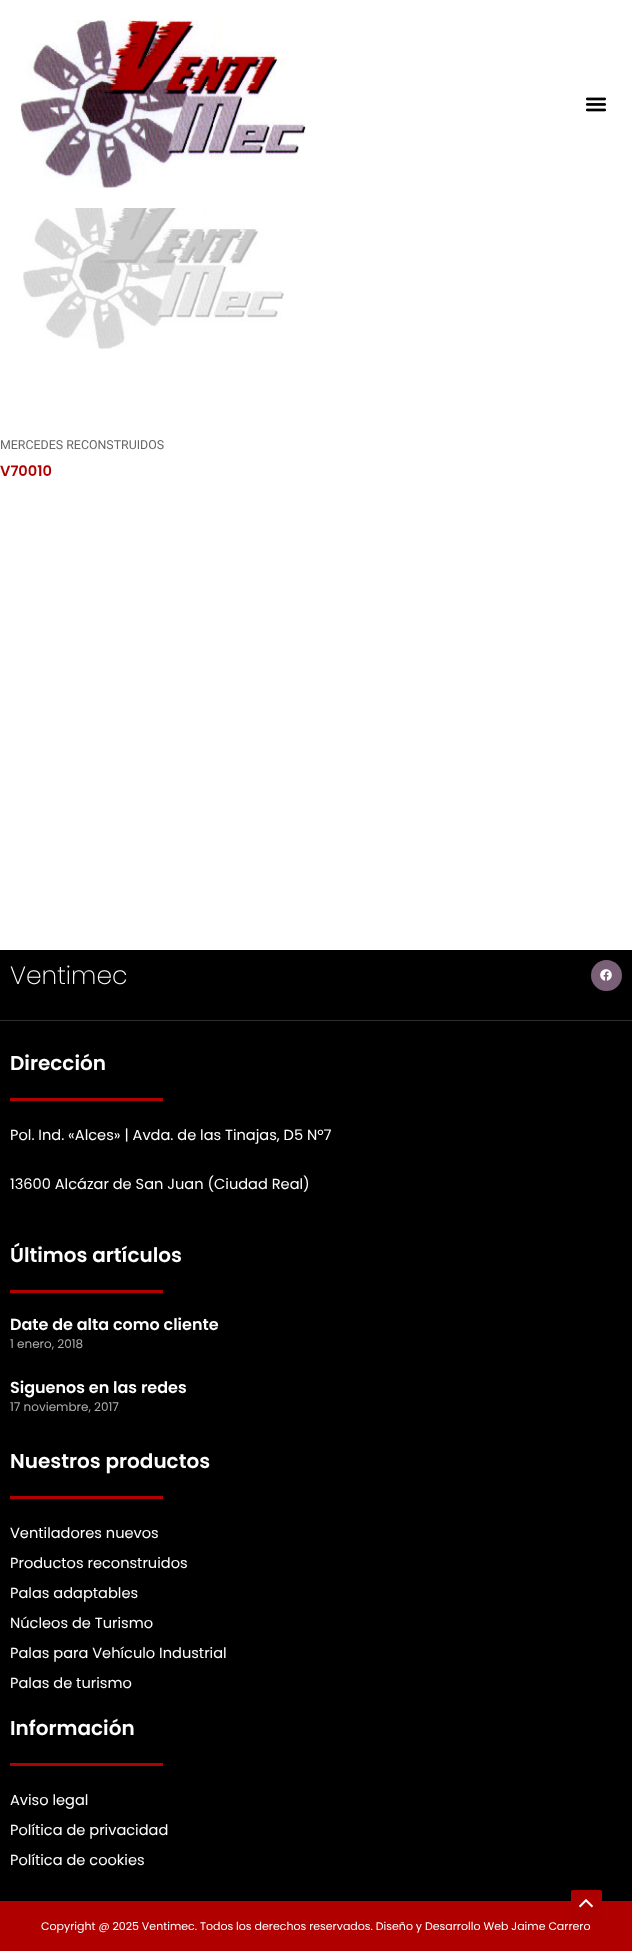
<svg xmlns="http://www.w3.org/2000/svg" width="632" height="1951">
<style>
.a{font:12.4px Roboto;fill:#676767}
.b{font:600 14.6px Poppins;fill:#b00000}
.c{font:200 25px Poppins;fill:#fff}
.d{font:600 20px Poppins;fill:#fff}
.e{font:14.6px Poppins;fill:#fff}
.f{font:600 16px Poppins;fill:#fff}
.g{font:12px Poppins;fill:#adadad}
.h{font:11px Poppins;fill:#fff}
</style>
<rect width="100%" height="100%" fill="#fff"/>
<image href="1.png" x="20" y="20" width="286" height="168"/>
<image href="2.png" x="585" y="97" width="22" height="15"/>
<image href="3.png" x="23" y="208" width="261" height="141"/>
<path fill="#000" d="M0 950h632v70H0z"/>
<path fill="#2d2d2d" d="M0 1020h632v1H0z"/>
<circle fill="#7a6077" cx="606.5" cy="975.5" r="15.5"/>
<image href="4.png" x="600" y="969" width="12" height="12"/>
<path fill="#000" d="M0 1021h632v880H0z"/>
<path fill="#b00000" d="M10 1098h153v3H10z"/>
<path fill="#b00000" d="M10 1290h153v3H10z"/>
<path fill="#b00000" d="M10 1496h153v3H10z"/>
<path fill="#b00000" d="M10 1763h153v3H10z"/>
<path fill="#b00000" d="M0 1901h632v50H0z"/>
<rect fill="#ad0000" x="571" y="1890" width="31" height="31" rx="2"/>
<image href="5.png" x="579" y="1899" width="15" height="9"/>
<text class="a" x="0" y="449">MERCEDES RECONSTRUIDOS</text>
<text class="b" x="0" y="476">V70010</text>
<text class="c" x="10" y="984">Ventimec</text>
<text class="d" x="10" y="1070">Dirección</text>
<text class="e" x="10" y="1140">Pol. Ind. «Alces» | Avda. de las Tinajas, D5 Nº7</text>
<text class="e" x="10" y="1189">13600 Alcázar de San Juan (Ciudad Real)</text>
<text class="d" x="10" y="1262">Últimos artículos</text>
<text class="f" x="10" y="1330">Date de alta como cliente</text>
<text class="g" x="10" y="1348">1 enero, 2018</text>
<text class="f" x="10" y="1393">Siguenos en las redes</text>
<text class="g" x="10" y="1411">17 noviembre, 2017</text>
<text class="d" x="10" y="1468">Nuestros productos</text>
<text class="e" x="10" y="1538">Ventiladores nuevos</text>
<text class="e" x="10" y="1568">Productos reconstruidos</text>
<text class="e" x="10" y="1598">Palas adaptables</text>
<text class="e" x="10" y="1628">Núcleos de Turismo</text>
<text class="e" x="10" y="1658">Palas para Vehículo Industrial</text>
<text class="e" x="10" y="1688">Palas de turismo</text>
<text class="d" x="10" y="1735">Información</text>
<text class="e" x="10" y="1805">Aviso legal</text>
<text class="e" x="10" y="1835">Política de privacidad</text>
<text class="e" x="10" y="1865">Política de cookies</text>
<text class="h" x="41" y="1930">Copyright @ 2025 Ventimec. Todos los derechos reservados. Diseño y Desarrollo Web Jaime Carrero</text>
</svg>
